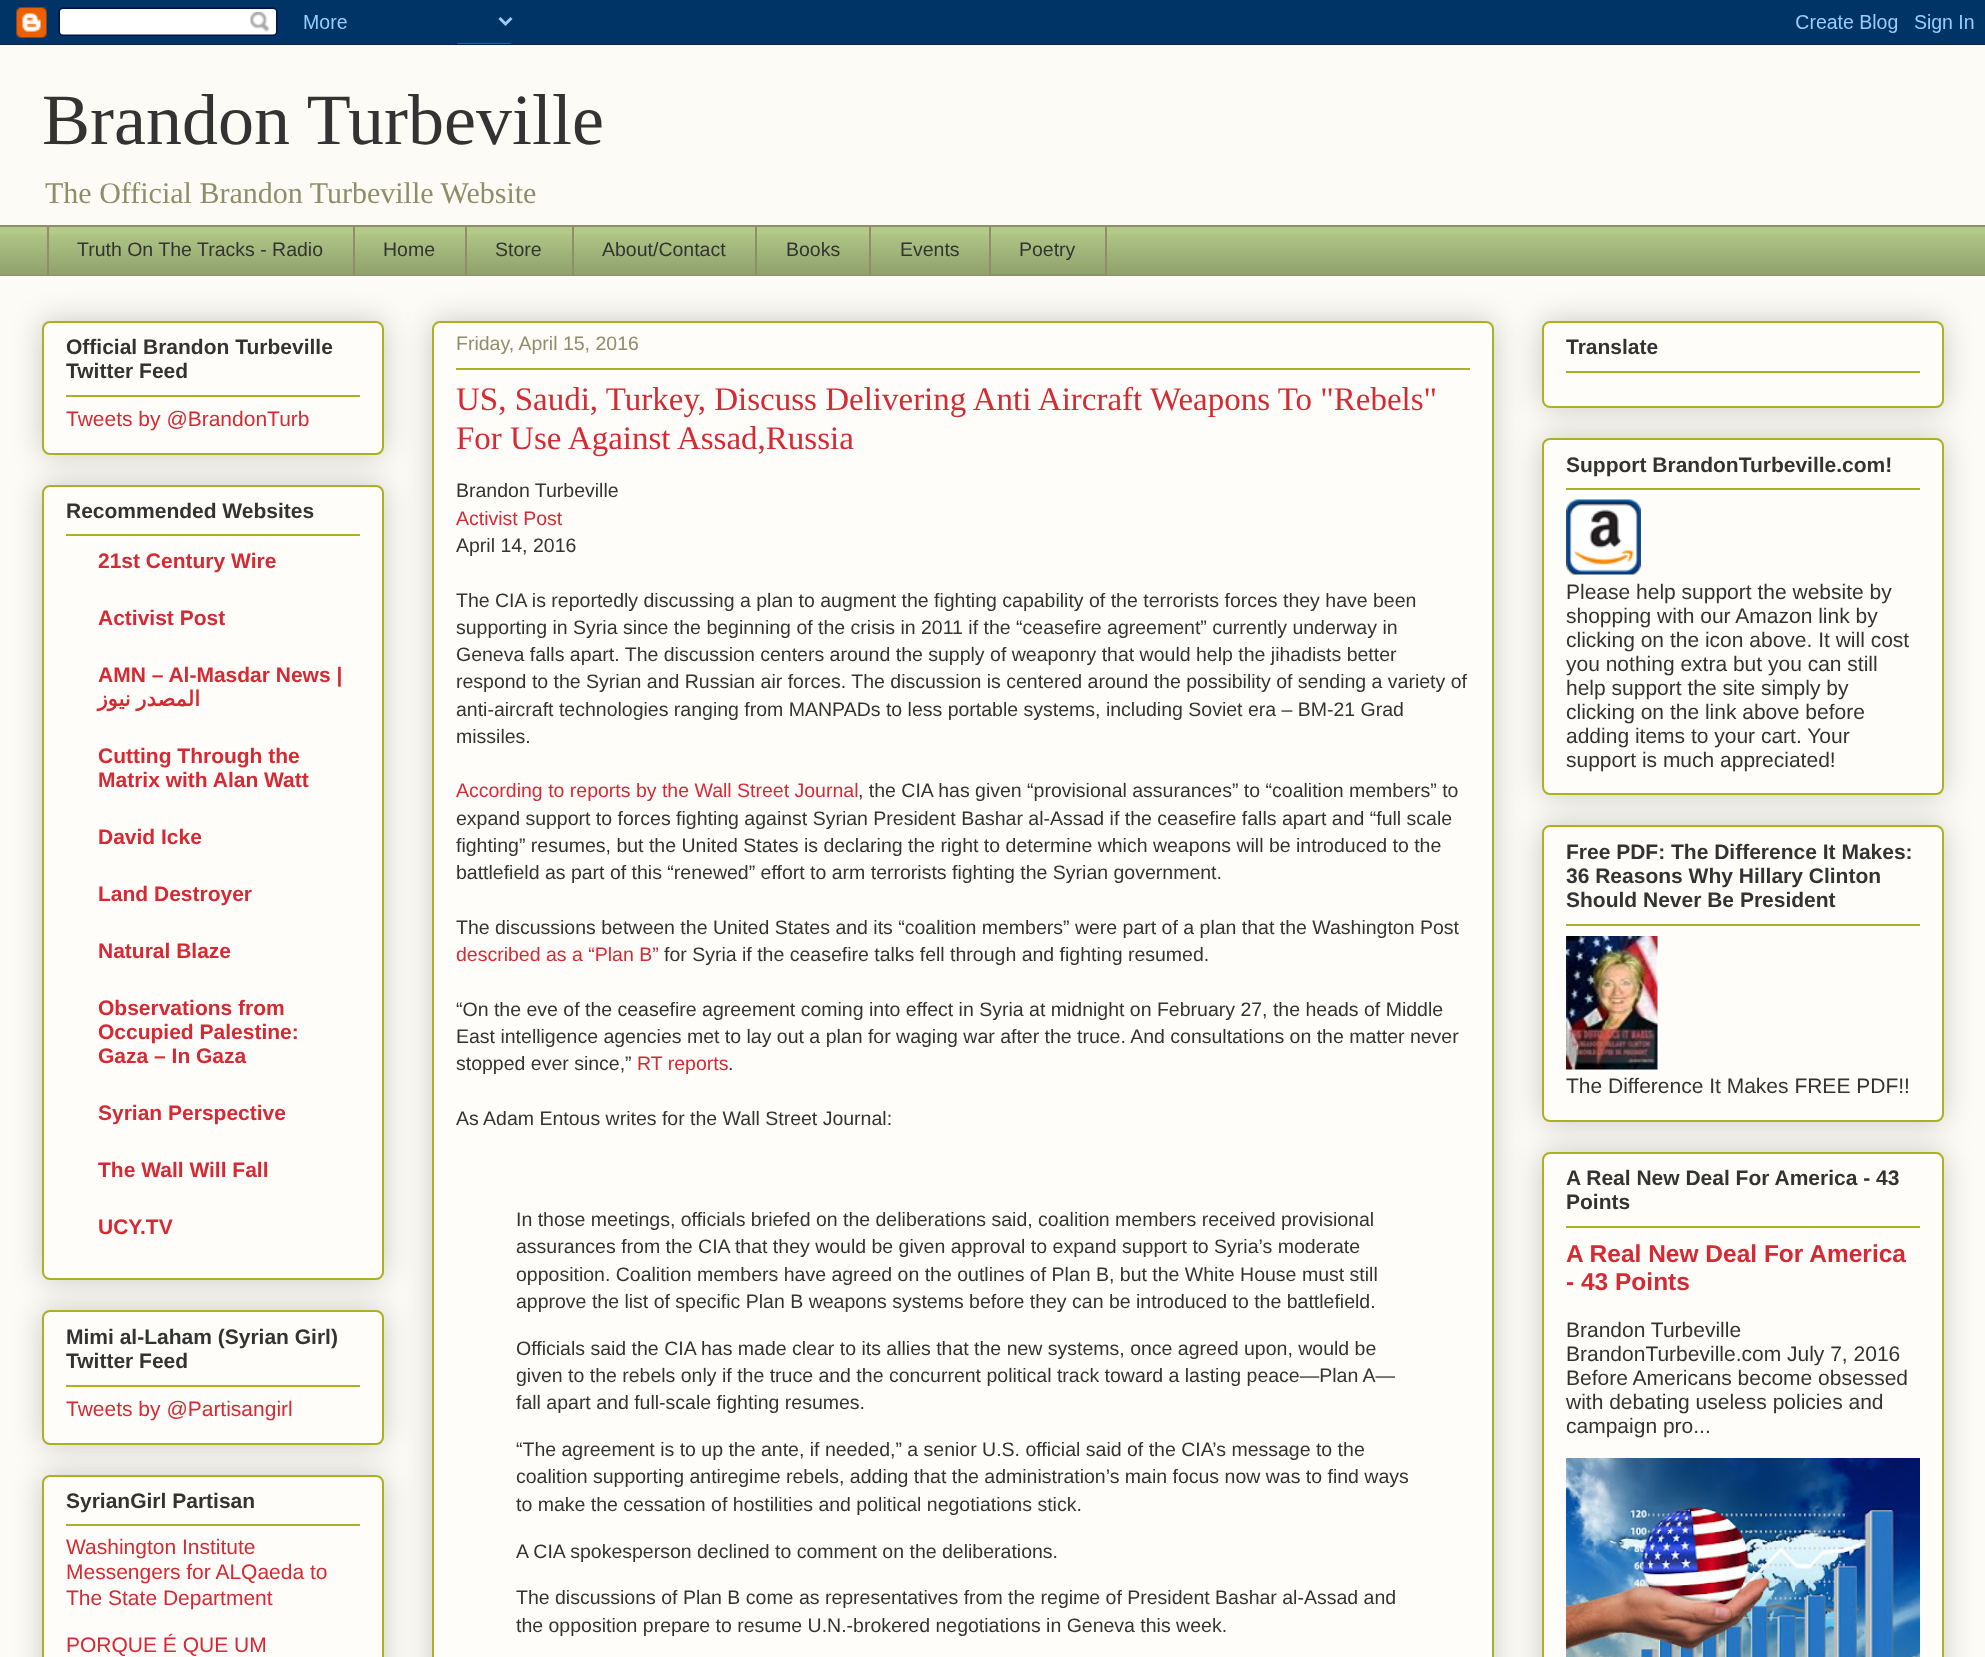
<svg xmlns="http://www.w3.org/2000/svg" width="1985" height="1657">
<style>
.a{font:72px Liberation Serif;fill:#333}
.b{font:30px Liberation Serif;fill:#908d6a}
.c{font:19.5px Liberation Sans;fill:#333}
.d{font:bold 21px Liberation Sans;fill:#333}
.e{font:21px Liberation Sans;fill:#d52a33}
.f{font:bold 21px Liberation Sans;fill:#d52a33}
.g{font:bold 21px DejaVu Sans;direction:rtl;fill:#d52a33}
.h{font:19.5px Liberation Sans;fill:#908d6a}
.i{font:33px Liberation Serif;fill:#d52a33}
.j{font:19.5px Liberation Sans;fill:#d52a33}
.k{font:21px Liberation Sans;fill:#333}
.l{font:bold 24.5px Liberation Sans;fill:#d52a33}
</style>
<rect width="100%" height="100%" fill="#fcfbf5"/>
<image href="1.png" x="0" y="0" width="1985" height="45"/>
<path fill="#b3ca88" d="M0 227h1985v48H0z"/>
<image href="2.png" x="0" y="234" width="1985" height="41"/>
<path fill="#908d6a" d="M0 225h1985v2H0z"/>
<path fill="#908d6a" d="M47 225h2v51H47z"/>
<path fill="#908d6a" d="M353 225h2v51H353z"/>
<path fill="#908d6a" d="M465 225h2v51H465z"/>
<path fill="#908d6a" d="M572 225h2v51H572z"/>
<path fill="#908d6a" d="M755 225h2v51H755z"/>
<path fill="#908d6a" d="M869 225h2v51H869z"/>
<path fill="none" stroke="#908d6a" stroke-width="2" d="M990 226h116v49H990z"/>
<path fill="#908d6a" d="M0 275h1985v1H0z"/>
<rect fill="#00000033" filter="blur(15px)" x="42" y="321" width="342" height="134" rx="8"/>
<rect fill="#fefdfa" stroke="#aab123" stroke-width="2" x="43" y="322" width="340" height="132" rx="7"/>
<path fill="#aab123" d="M66 395h294v2H66z"/>
<rect fill="#00000033" filter="blur(15px)" x="42" y="485" width="342" height="795" rx="8"/>
<rect fill="#fefdfa" stroke="#aab123" stroke-width="2" x="43" y="486" width="340" height="793" rx="7"/>
<path fill="#aab123" d="M66 534h294v2H66z"/>
<rect fill="#00000033" filter="blur(15px)" x="42" y="1310" width="342" height="135" rx="8"/>
<rect fill="#fefdfa" stroke="#aab123" stroke-width="2" x="43" y="1311" width="340" height="133" rx="7"/>
<path fill="#aab123" d="M66 1385h294v2H66z"/>
<rect fill="#00000033" filter="blur(15px)" x="42" y="1475" width="342" height="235" rx="8"/>
<rect fill="#fefdfa" stroke="#aab123" stroke-width="2" x="43" y="1476" width="340" height="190" rx="7"/>
<path fill="#aab123" d="M66 1524h294v2H66z"/>
<rect fill="#00000033" filter="blur(15px)" x="432" y="321" width="1062" height="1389" rx="8"/>
<rect fill="#fefdfa" stroke="#aab123" stroke-width="2" x="433" y="322" width="1060" height="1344" rx="7"/>
<path fill="#aab123" d="M456 368h1014v2H456z"/>
<rect fill="#00000033" filter="blur(15px)" x="1542" y="321" width="402" height="87" rx="8"/>
<rect fill="#fefdfa" stroke="#aab123" stroke-width="2" x="1543" y="322" width="400" height="85" rx="7"/>
<path fill="#aab123" d="M1566 371h354v2H1566z"/>
<rect fill="#00000033" filter="blur(15px)" x="1542" y="438" width="402" height="357" rx="8"/>
<rect fill="#fefdfa" stroke="#aab123" stroke-width="2" x="1543" y="439" width="400" height="355" rx="7"/>
<path fill="#aab123" d="M1566 488h354v2H1566z"/>
<image href="3.png" x="1566" y="499" width="75" height="76"/>
<rect fill="#00000033" filter="blur(15px)" x="1542" y="825" width="402" height="297" rx="8"/>
<rect fill="#fefdfa" stroke="#aab123" stroke-width="2" x="1543" y="826" width="400" height="295" rx="7"/>
<path fill="#aab123" d="M1566 924h354v2H1566z"/>
<image href="4.png" x="1566" y="936" width="92" height="134"/>
<rect fill="#00000033" filter="blur(15px)" x="1542" y="1152" width="402" height="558" rx="8"/>
<rect fill="#fefdfa" stroke="#aab123" stroke-width="2" x="1543" y="1153" width="400" height="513" rx="7"/>
<path fill="#aab123" d="M1566 1226h354v2H1566z"/>
<image href="5.png" x="1566" y="1458" width="354" height="199"/>
<text class="a" x="42" y="144">Brandon Turbeville</text>
<text class="b" x="45" y="203">The Official Brandon Turbeville Website</text>
<text class="c" x="77" y="256">Truth On The Tracks - Radio</text>
<text class="c" x="383" y="256">Home</text>
<text class="c" x="495" y="256">Store</text>
<text class="c" x="602" y="256">About/Contact</text>
<text class="c" x="786" y="256">Books</text>
<text class="c" x="900" y="256">Events</text>
<text class="c" x="1019" y="256">Poetry</text>
<text class="d" x="66" y="354">Official Brandon Turbeville</text>
<text class="d" x="66" y="378">Twitter Feed</text>
<text class="e" x="66" y="426">Tweets by @BrandonTurb</text>
<text class="d" x="66" y="518">Recommended Websites</text>
<text class="f" x="98" y="568">21st Century Wire</text>
<text class="f" x="98" y="625">Activist Post</text>
<text class="f" x="98" y="682">AMN – Al-Masdar News |</text>
<text class="g" x="200" y="706" word-spacing="-1">المصدر نيوز</text>
<text class="f" x="98" y="763">Cutting Through the</text>
<text class="f" x="98" y="787">Matrix with Alan Watt</text>
<text class="f" x="98" y="844">David Icke</text>
<text class="f" x="98" y="901">Land Destroyer</text>
<text class="f" x="98" y="958">Natural Blaze</text>
<text class="f" x="98" y="1015">Observations from</text>
<text class="f" x="98" y="1039">Occupied Palestine:</text>
<text class="f" x="98" y="1063">Gaza – In Gaza</text>
<text class="f" x="98" y="1120">Syrian Perspective</text>
<text class="f" x="98" y="1177">The Wall Will Fall</text>
<text class="f" x="98" y="1234">UCY.TV</text>
<text class="d" x="66" y="1344">Mimi al-Laham (Syrian Girl)</text>
<text class="d" x="66" y="1368">Twitter Feed</text>
<text class="e" x="66" y="1416">Tweets by @Partisangirl</text>
<text class="d" x="66" y="1508">SyrianGirl Partisan</text>
<text class="e" x="66" y="1554">Washington Institute</text>
<text class="e" x="66" y="1579">Messengers for ALQaeda to</text>
<text class="e" x="66" y="1605">The State Department</text>
<text class="e" x="66" y="1652">PORQUE É QUE UM</text>
<text class="h" x="456" y="350">Friday, April 15, 2016</text>
<text class="i" x="456" y="410">US, Saudi, Turkey, Discuss Delivering Anti Aircraft Weapons To "Rebels"</text>
<text class="i" x="456" y="449">For Use Against Assad,Russia</text>
<text class="c" x="456" y="497">Brandon Turbeville</text>
<text class="j" x="456" y="525">Activist Post</text>
<text class="c" x="456" y="552">April 14, 2016</text>
<text class="c" x="456" y="607">The CIA is reportedly discussing a plan to augment the fighting capability of the terrorists forces they have been</text>
<text class="c" x="456" y="634">supporting in Syria since the beginning of the crisis in 2011 if the “ceasefire agreement” currently underway in</text>
<text class="c" x="456" y="661">Geneva falls apart. The discussion centers around the supply of weaponry that would help the jihadists better</text>
<text class="c" x="456" y="688">respond to the Syrian and Russian air forces. The discussion is centered around the possibility of sending a variety of</text>
<text class="c" x="456" y="716">anti-aircraft technologies ranging from MANPADs to less portable systems, including Soviet era – BM-21 Grad</text>
<text class="c" x="456" y="743">missiles.</text>
<text class="j" x="456" y="797">According to reports by the Wall Street Journal</text>
<text class="c" x="858" y="797">, the CIA has given “provisional assurances” to “coalition members” to</text>
<text class="c" x="456" y="825">expand support to forces fighting against Syrian President Bashar al-Assad if the ceasefire falls apart and “full scale</text>
<text class="c" x="456" y="852">fighting” resumes, but the United States is declaring the right to determine which weapons will be introduced to the</text>
<text class="c" x="456" y="879">battlefield as part of this “renewed” effort to arm terrorists fighting the Syrian government.</text>
<text class="c" x="456" y="934">The discussions between the United States and its “coalition members” were part of a plan that the Washington Post</text>
<text class="j" x="456" y="961">described as a “Plan B”</text>
<text class="c" x="664" y="961">for Syria if the ceasefire talks fell through and fighting resumed.</text>
<text class="c" x="456" y="1016">“On the eve of the ceasefire agreement coming into effect in Syria at midnight on February 27, the heads of Middle</text>
<text class="c" x="456" y="1043">East intelligence agencies met to lay out a plan for waging war after the truce. And consultations on the matter never</text>
<text class="c" x="456" y="1070">stopped ever since,”</text>
<text class="j" x="637" y="1070">RT reports</text>
<text class="c" x="728" y="1070">.</text>
<text class="c" x="456" y="1125">As Adam Entous writes for the Wall Street Journal:</text>
<text class="c" x="516" y="1226">In those meetings, officials briefed on the deliberations said, coalition members received provisional</text>
<text class="c" x="516" y="1253">assurances from the CIA that they would be given approval to expand support to Syria’s moderate</text>
<text class="c" x="516" y="1281">opposition. Coalition members have agreed on the outlines of Plan B, but the White House must still</text>
<text class="c" x="516" y="1308">approve the list of specific Plan B weapons systems before they can be introduced to the battlefield.</text>
<text class="c" x="516" y="1355">Officials said the CIA has made clear to its allies that the new systems, once agreed upon, would be</text>
<text class="c" x="516" y="1382">given to the rebels only if the truce and the concurrent political track toward a lasting peace—Plan A—</text>
<text class="c" x="516" y="1409">fall apart and full-scale fighting resumes.</text>
<text class="c" x="516" y="1456">“The agreement is to up the ante, if needed,” a senior U.S. official said of the CIA’s message to the</text>
<text class="c" x="516" y="1483">coalition supporting antiregime rebels, adding that the administration’s main focus now was to find ways</text>
<text class="c" x="516" y="1511">to make the cessation of hostilities and political negotiations stick.</text>
<text class="c" x="516" y="1558">A CIA spokesperson declined to comment on the deliberations.</text>
<text class="c" x="516" y="1604">The discussions of Plan B come as representatives from the regime of President Bashar al-Assad and</text>
<text class="c" x="516" y="1632">the opposition prepare to resume U.N.-brokered negotiations in Geneva this week.</text>
<text class="d" x="1566" y="354">Translate</text>
<text class="d" x="1566" y="472">Support BrandonTurbeville.com!</text>
<text class="k" x="1566" y="599">Please help support the website by</text>
<text class="k" x="1566" y="623">shopping with our Amazon link by</text>
<text class="k" x="1566" y="647">clicking on the icon above. It will cost</text>
<text class="k" x="1566" y="671">you nothing extra but you can still</text>
<text class="k" x="1566" y="695">help support the site simply by</text>
<text class="k" x="1566" y="719">clicking on the link above before</text>
<text class="k" x="1566" y="743">adding items to your cart. Your</text>
<text class="k" x="1566" y="767">support is much appreciated!</text>
<text class="d" x="1566" y="859">Free PDF: The Difference It Makes:</text>
<text class="d" x="1566" y="883">36 Reasons Why Hillary Clinton</text>
<text class="d" x="1566" y="907">Should Never Be President</text>
<text class="k" x="1566" y="1093">The Difference It Makes FREE PDF!!</text>
<text class="d" x="1566" y="1185">A Real New Deal For America - 43</text>
<text class="d" x="1566" y="1209">Points</text>
<text class="l" x="1566" y="1262">A Real New Deal For America</text>
<text class="l" x="1566" y="1290">- 43 Points</text>
<text class="k" x="1566" y="1337">Brandon Turbeville</text>
<text class="k" x="1566" y="1361">BrandonTurbeville.com July 7, 2016</text>
<text class="k" x="1566" y="1385">Before Americans become obsessed</text>
<text class="k" x="1566" y="1409">with debating useless policies and</text>
<text class="k" x="1566" y="1433">campaign pro...</text>
</svg>
